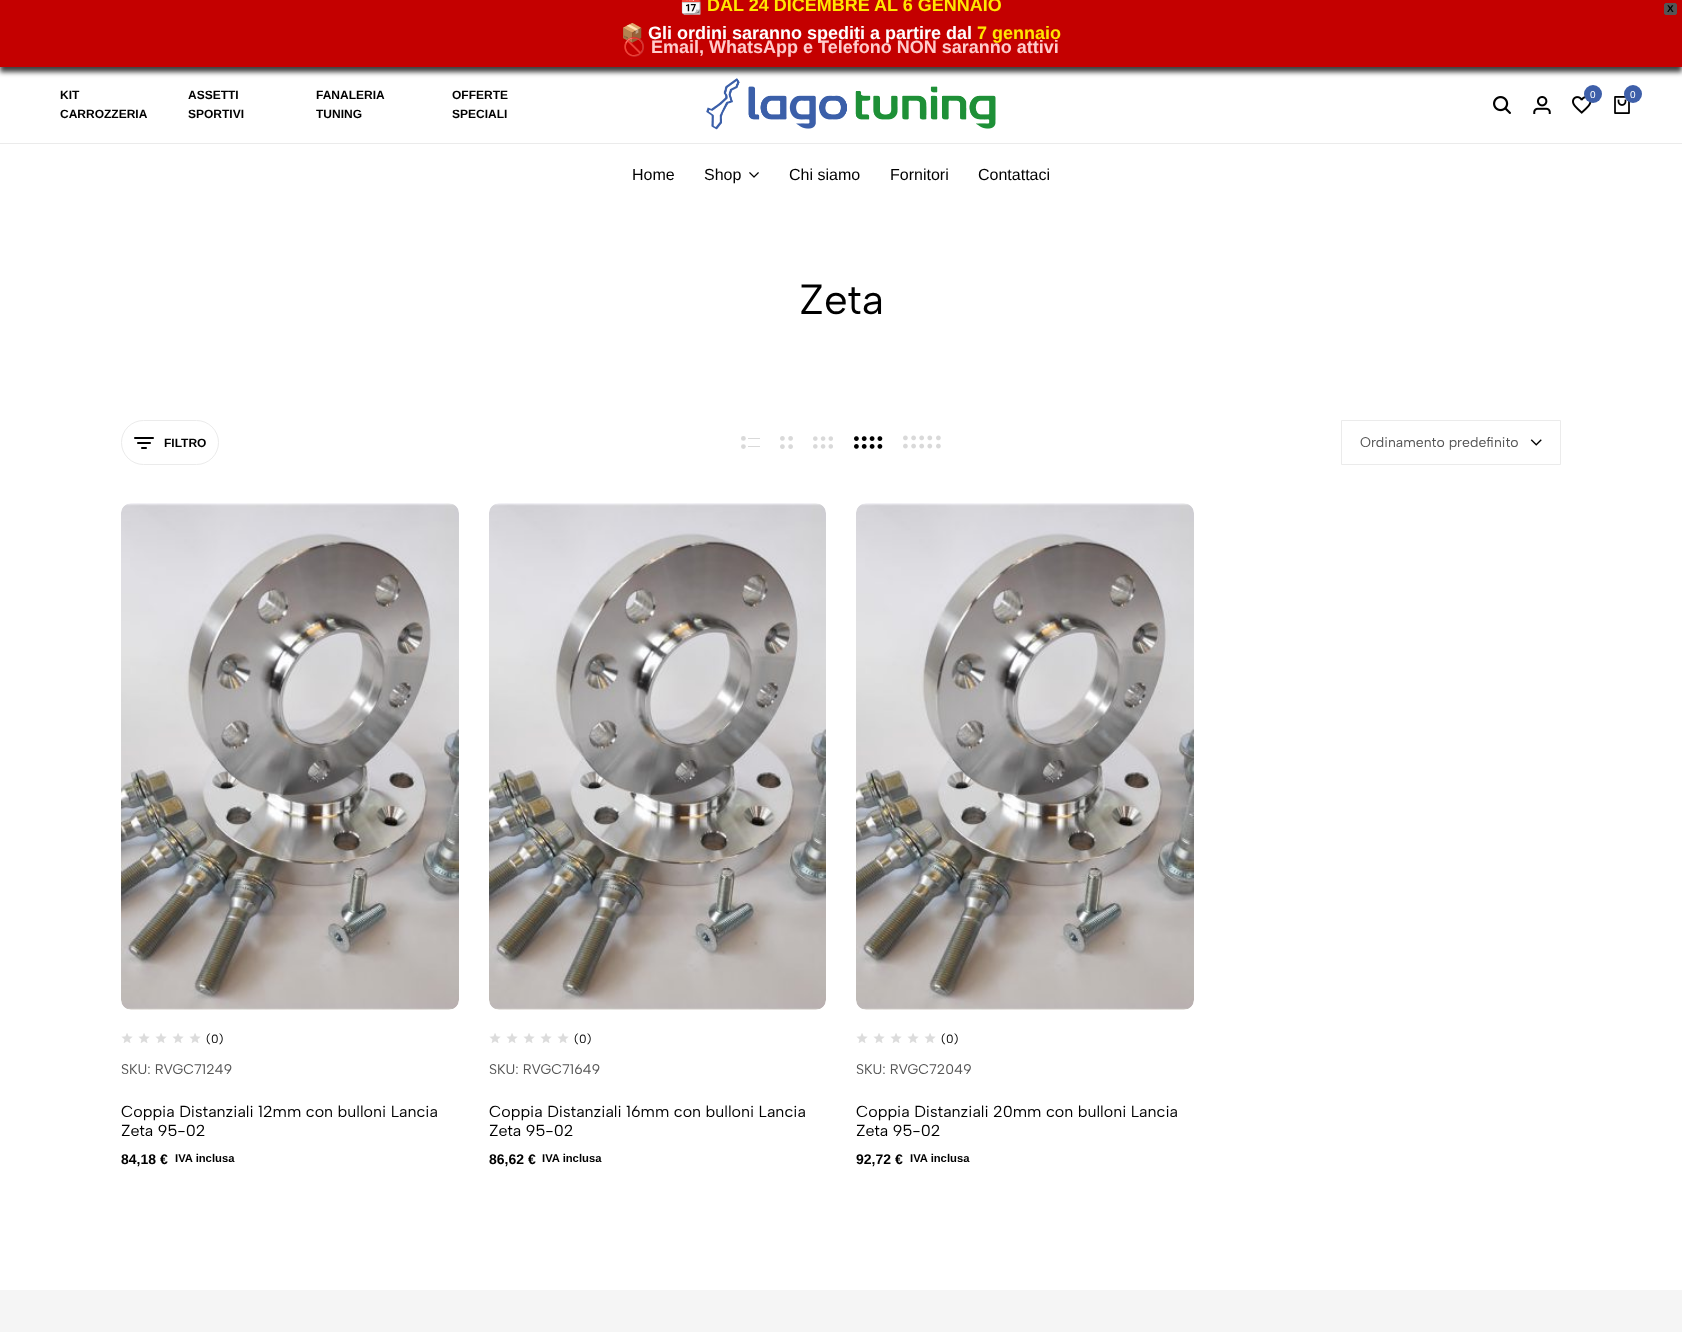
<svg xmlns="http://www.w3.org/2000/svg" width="1682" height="1332">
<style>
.a{font:bold 18px Noto Color Emoji;fill:#fff}
.b{font:bold 18px Liberation Sans;fill:#ffe600}
.c{font:bold 18px Liberation Sans;fill:#fff}
.d{font:bold 18px Liberation Sans;fill:#fcc}
.e{font:bold 10px Liberation Sans;fill:#000}
.f{font:bold 12px Liberation Sans;fill:#000}
.g{font:10px Liberation Sans;fill:#fff}
.h{font:16px Liberation Sans;fill:#000}
.i{font:42px Albert Sans;fill:#000}
.j{font:14px Albert Sans;fill:#545454}
.k{font:12px Albert Sans;fill:#000}
.l{font:16px Albert Sans;fill:#000}
.m{font:bold 14px Liberation Sans;fill:#000}
.n{font:bold 11.25px Liberation Sans;fill:#000}
</style>
<rect width="100%" height="100%" fill="#fff"/>
<image href="1.png" x="706" y="78" width="290" height="52"/>
<path fill="#000000bf" filter="blur(2.5px)" d="M0 5h1682v67H0z"/>
<path fill="#c40000" d="M0 0h1682v67H0z"/>
<rect fill="#555" stroke="#555" x="1664.5" y="3.5" width="12" height="11" rx="1.5"/>
<path fill="#ebebeb" d="M0 143h1682v1H0z"/>
<image href="2.png" x="1572" y="96" width="20" height="18"/>
<circle fill="#3e5fa9" cx="1593" cy="94" r="9"/>
<image href="3.png" x="1614" y="96" width="16" height="18"/>
<circle fill="#3e5fa9" cx="1633" cy="94" r="9"/>
<image href="4.png" x="1493" y="96" width="18" height="18"/>
<image href="5.png" x="1533" y="96" width="18" height="18"/>
<image href="6.png" x="749" y="172" width="10" height="6"/>
<rect fill="none" stroke="#ebebeb" x="121.5" y="420.5" width="97" height="44" rx="22"/>
<image href="7.png" x="134" y="437" width="20" height="12"/>
<circle fill="#d9d9d9" cx="743.4" cy="438.4" r="2.4"/>
<circle fill="#d9d9d9" cx="743.4" cy="446.6" r="2.4"/>
<path fill="#d9d9d9" d="M748 438h12v1H748z"/>
<path fill="#d9d9d9" d="M748 446h12v1H748z"/>
<image href="8.png" x="780" y="436" width="13" height="13"/>
<image href="9.png" x="813" y="436" width="20" height="13"/>
<image href="10.png" x="854" y="436" width="29" height="13"/>
<image href="11.png" x="903" y="435" width="38" height="14"/>
<path fill="none" stroke="#ebebeb" d="M1341.5 420.5h219v44H1341.5z"/>
<image href="12.png" x="1530" y="439" width="12" height="7"/>
<image href="13.png" x="121" y="503" width="338" height="507"/>
<image href="14.png" x="121" y="1033" width="12" height="10"/>
<image href="14.png" x="138" y="1033" width="12" height="10"/>
<image href="14.png" x="155" y="1033" width="12" height="10"/>
<image href="14.png" x="172" y="1033" width="12" height="10"/>
<image href="14.png" x="189" y="1033" width="12" height="10"/>
<image href="15.png" x="489" y="503" width="337" height="507"/>
<image href="14.png" x="489" y="1033" width="12" height="10"/>
<image href="14.png" x="506" y="1033" width="12" height="10"/>
<image href="14.png" x="523" y="1033" width="12" height="10"/>
<image href="14.png" x="540" y="1033" width="12" height="10"/>
<image href="14.png" x="557" y="1033" width="12" height="10"/>
<image href="16.png" x="856" y="503" width="338" height="507"/>
<image href="14.png" x="856" y="1033" width="12" height="10"/>
<image href="14.png" x="873" y="1033" width="12" height="10"/>
<image href="14.png" x="890" y="1033" width="12" height="10"/>
<image href="14.png" x="907" y="1033" width="12" height="10"/>
<image href="14.png" x="924" y="1033" width="12" height="10"/>
<path fill="#f5f5f5" d="M0 1290h1682v42H0z"/>
<text class="a" x="680" y="11">📆</text>
<text class="b" x="707" y="11">DAL 24 DICEMBRE AL 6 GENNAIO</text>
<text class="a" x="621" y="39">📦</text>
<text class="c" x="648" y="39">Gli ordini saranno spediti a partire dal</text>
<text class="b" x="977" y="39">7 gennaio</text>
<text class="a" x="623" y="53">🚫</text>
<text class="d" x="651" y="53">Email, WhatsApp e Telefono NON saranno attivi</text>
<text class="e" x="1667" y="12">X</text>
<text class="f" x="60" y="99">KIT</text>
<text class="f" x="60" y="118">CARROZZERIA</text>
<text class="f" x="188" y="99">ASSETTI</text>
<text class="f" x="188" y="118">SPORTIVI</text>
<text class="f" x="316" y="99">FANALERIA</text>
<text class="f" x="316" y="118">TUNING</text>
<text class="f" x="452" y="99">OFFERTE</text>
<text class="f" x="452" y="118">SPECIALI</text>
<text class="g" x="1590" y="98">0</text>
<text class="g" x="1630" y="98">0</text>
<text class="h" x="632" y="180">Home</text>
<text class="h" x="704" y="180">Shop</text>
<text class="h" x="789" y="180">Chi siamo</text>
<text class="h" x="890" y="180">Fornitori</text>
<text class="h" x="978" y="180">Contattaci</text>
<text class="i" x="799" y="314">Zeta</text>
<text class="f" x="164" y="447">FILTRO</text>
<text class="j" x="1360" y="447">Ordinamento predefinito</text>
<text class="k" x="206" y="1043">(0)</text>
<text class="j" x="121" y="1074">SKU: RVGC71249</text>
<text class="l" x="121" y="1117">Coppia Distanziali 12mm con bulloni Lancia</text>
<text class="l" x="121" y="1136">Zeta 95-02</text>
<text class="m" x="121" y="1164">84,18 €</text>
<text class="n" x="175" y="1162">IVA inclusa</text>
<text class="k" x="574" y="1043">(0)</text>
<text class="j" x="489" y="1074">SKU: RVGC71649</text>
<text class="l" x="489" y="1117">Coppia Distanziali 16mm con bulloni Lancia</text>
<text class="l" x="489" y="1136">Zeta 95-02</text>
<text class="m" x="489" y="1164">86,62 €</text>
<text class="n" x="542" y="1162">IVA inclusa</text>
<text class="k" x="941" y="1043">(0)</text>
<text class="j" x="856" y="1074">SKU: RVGC72049</text>
<text class="l" x="856" y="1117">Coppia Distanziali 20mm con bulloni Lancia</text>
<text class="l" x="856" y="1136">Zeta 95-02</text>
<text class="m" x="856" y="1164">92,72 €</text>
<text class="n" x="910" y="1162">IVA inclusa</text>
</svg>
